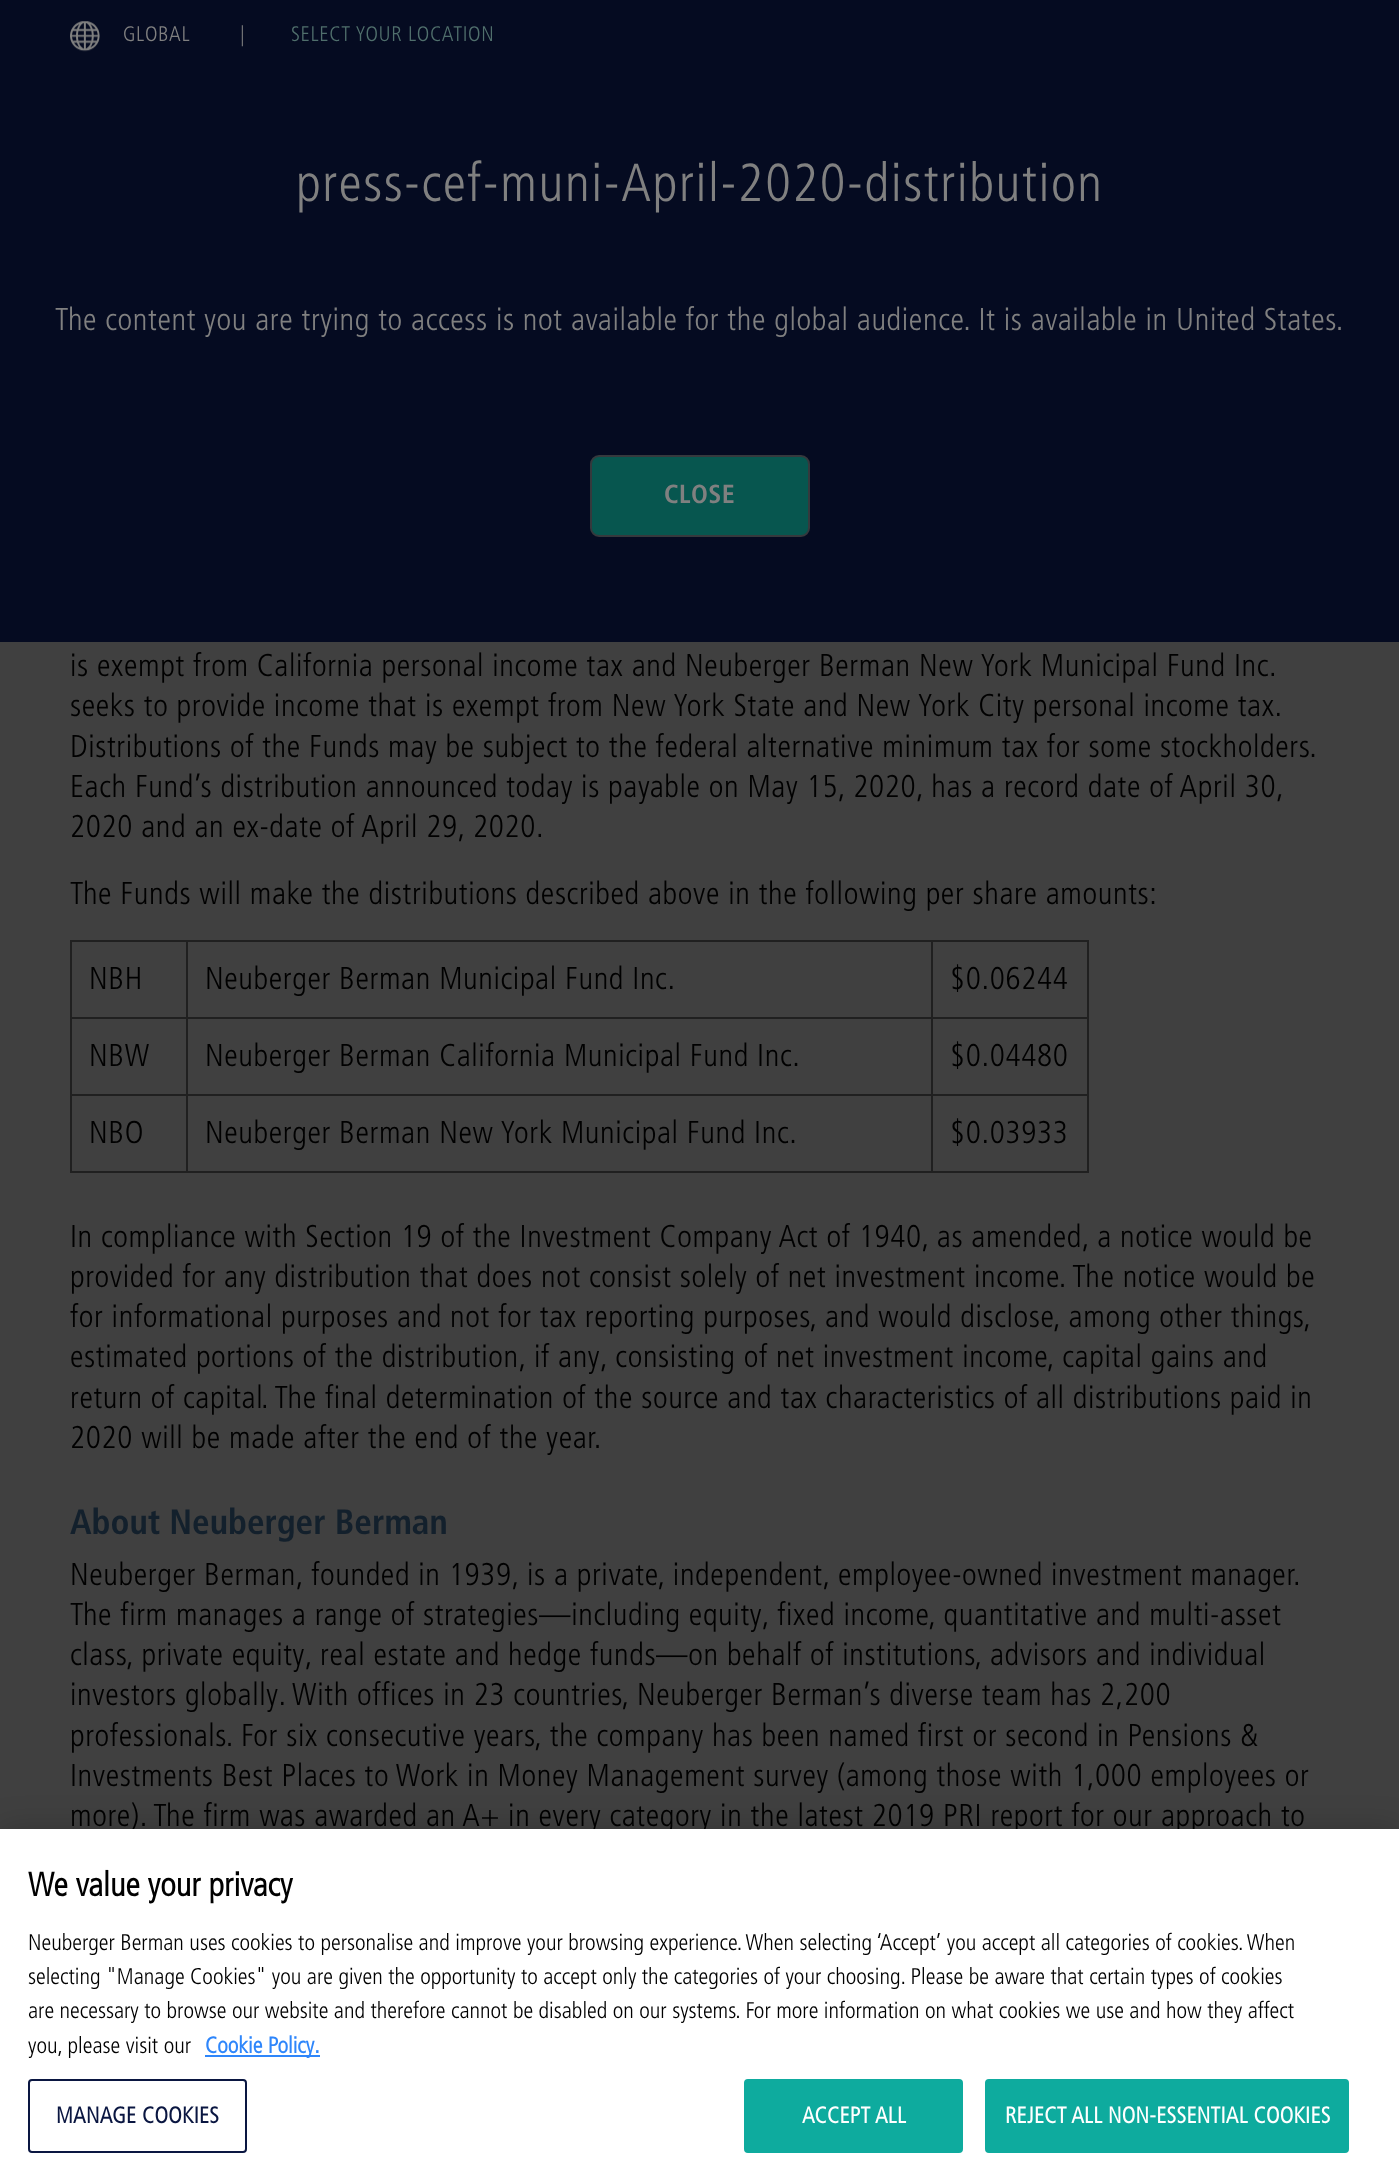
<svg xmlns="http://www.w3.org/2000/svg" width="1399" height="2176">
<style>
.a{font:300 21px Frutiger;letter-spacing:0.63px;fill:#808080}
.b{font:300 21px Frutiger;letter-spacing:0.63px;fill:#506f6c}
.c{font:300 53.5px Frutiger;letter-spacing:1.6px;fill:#808080}
.d{font:300 31.5px Frutiger;letter-spacing:0.63px;fill:#808080}
.e{font:bold 26px Frutiger;letter-spacing:0.5px;fill:#808080}
.f{font:300 31.5px Frutiger;letter-spacing:0.63px;fill:#000}
.g{font:bold 35.25px Frutiger;fill:#13202c}
.h{font:bold 33.5px 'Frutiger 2';fill:#000}
.i{font:300 22.75px Frutiger;fill:#000}
.j{font:bold 22.75px 'Frutiger 2';fill:#2e86fb}
.k{font:bold 22.75px 'Frutiger 2';letter-spacing:0.25px;fill:#0a1641}
.l{font:bold 22.75px 'Frutiger 2';letter-spacing:0.25px;fill:#fff}
</style>
<rect width="100%" height="100%" fill="#404040"/>
<path fill="#050b21" d="M0 0h1399v642H0z"/>
<image href="1.png" x="70" y="21" width="30" height="31"/>
<rect fill="#07564f" stroke="#35393d" stroke-width="2" x="591" y="456" width="218" height="80" rx="8"/>
<path fill="#202020" d="M70 940h1019v2H70z"/>
<path fill="#202020" d="M1087 940h2v233H1087z"/>
<path fill="#202020" d="M70 1171h1019v2H70z"/>
<path fill="#202020" d="M70 940h2v233H70z"/>
<path fill="#202020" d="M931 1017h158v2H931z"/>
<path fill="#202020" d="M931 1094h158v2H931z"/>
<path fill="#202020" d="M931 1094h2v79H931z"/>
<path fill="#202020" d="M186 1094h747v2H186z"/>
<path fill="#202020" d="M931 1017h2v79H931z"/>
<path fill="#202020" d="M186 1017h747v2H186z"/>
<path fill="#202020" d="M186 1094h2v79H186z"/>
<path fill="#202020" d="M70 1094h117v2H70z"/>
<path fill="#202020" d="M186 1017h2v79H186z"/>
<path fill="#202020" d="M70 1017h117v2H70z"/>
<path fill="#202020" d="M186 940h2v79H186z"/>
<path fill="#202020" d="M931 940h2v79H931z"/>
<path fill="#00000033" filter="blur(16px)" d="M0 1829h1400v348H0z"/>
<text class="a" x="123" y="41">GLOBAL</text>
<text class="a" x="240" y="41">|</text>
<text class="b" x="291" y="41">SELECT YOUR LOCATION</text>
<text class="c" x="296" y="201">press-cef-muni-April-2020-distribution</text>
<text class="d" x="55" y="330">The content you are trying to access is not available for the global audience. It is available in United States.</text>
<text class="e" x="664" y="503">CLOSE</text>
<text class="f" x="70" y="676">is exempt from California personal income tax and Neuberger Berman New York Municipal Fund Inc.</text>
<text class="f" x="70" y="716">seeks to provide income that is exempt from New York State and New York City personal income tax.</text>
<text class="f" x="70" y="757">Distributions of the Funds may be subject to the federal alternative minimum tax for some stockholders.</text>
<text class="f" x="70" y="797">Each Fund’s distribution announced today is payable on May 15, 2020, has a record date of April 30,</text>
<text class="f" x="70" y="837">2020 and an ex-date of April 29, 2020.</text>
<text class="f" x="70" y="904">The Funds will make the distributions described above in the following per share amounts:</text>
<text class="f" x="89" y="989">NBH</text>
<text class="f" x="205" y="989">Neuberger Berman Municipal Fund Inc.</text>
<text class="f" x="950" y="989">$0.06244</text>
<text class="f" x="89" y="1066">NBW</text>
<text class="f" x="205" y="1066">Neuberger Berman California Municipal Fund Inc.</text>
<text class="f" x="950" y="1066">$0.04480</text>
<text class="f" x="89" y="1143">NBO</text>
<text class="f" x="205" y="1143">Neuberger Berman New York Municipal Fund Inc.</text>
<text class="f" x="950" y="1143">$0.03933</text>
<text class="f" x="70" y="1247">In compliance with Section 19 of the Investment Company Act of 1940, as amended, a notice would be</text>
<text class="f" x="70" y="1287">provided for any distribution that does not consist solely of net investment income. The notice would be</text>
<text class="f" x="70" y="1327">for informational purposes and not for tax reporting purposes, and would disclose, among other things,</text>
<text class="f" x="70" y="1367">estimated portions of the distribution, if any, consisting of net investment income, capital gains and</text>
<text class="f" x="70" y="1408">return of capital. The final determination of the source and tax characteristics of all distributions paid in</text>
<text class="f" x="70" y="1448">2020 will be made after the end of the year.</text>
<text class="g" x="70" y="1534">About Neuberger Berman</text>
<text class="f" x="70" y="1585">Neuberger Berman, founded in 1939, is a private, independent, employee-owned investment manager.</text>
<text class="f" x="70" y="1625">The firm manages a range of strategies—including equity, fixed income, quantitative and multi-asset</text>
<text class="f" x="70" y="1665">class, private equity, real estate and hedge funds—on behalf of institutions, advisors and individual</text>
<text class="f" x="70" y="1705">investors globally. With offices in 23 countries, Neuberger Berman’s diverse team has 2,200</text>
<text class="f" x="70" y="1746">professionals. For six consecutive years, the company has been named first or second in Pensions &amp;</text>
<text class="f" x="70" y="1786">Investments Best Places to Work in Money Management survey (among those with 1,000 employees or</text>
<text class="f" x="70" y="1826">more). The firm was awarded an A+ in every category in the latest 2019 PRI report for our approach to</text>
<path fill="#fff" d="M0 1829h1399v347H0z"/>
<text class="h" x="28" y="1896">We value your privacy</text>
<text class="i" x="28" y="1950">Neuberger Berman uses cookies to personalise and improve your browsing experience. When selecting ‘Accept’ you accept all categories of cookies. When</text>
<text class="i" x="28" y="1984">selecting "Manage Cookies" you are given the opportunity to accept only the categories of your choosing. Please be aware that certain types of cookies</text>
<text class="i" x="28" y="2018">are necessary to browse our website and therefore cannot be disabled on our systems. For more information on what cookies we use and how they affect</text>
<text class="i" x="28" y="2053">you, please visit our</text>
<path fill="#2e86fb" d="M205 2055h115v2H205z"/>
<text class="j" x="205" y="2053">Cookie Policy.</text>
<rect fill="none" stroke="#0a1641" stroke-width="2" x="29" y="2080" width="217" height="72" rx="3"/>
<text class="k" x="56" y="2123">MANAGE COOKIES</text>
<rect fill="#0eab9e" stroke="#0eab9e" stroke-width="2" x="745" y="2080" width="217" height="72" rx="3"/>
<text class="l" x="802" y="2123">ACCEPT ALL</text>
<rect fill="#0eab9e" stroke="#0eab9e" stroke-width="2" x="986" y="2080" width="362" height="72" rx="3"/>
<text class="l" x="1005" y="2123">REJECT ALL NON-ESSENTIAL COOKIES</text>
</svg>
